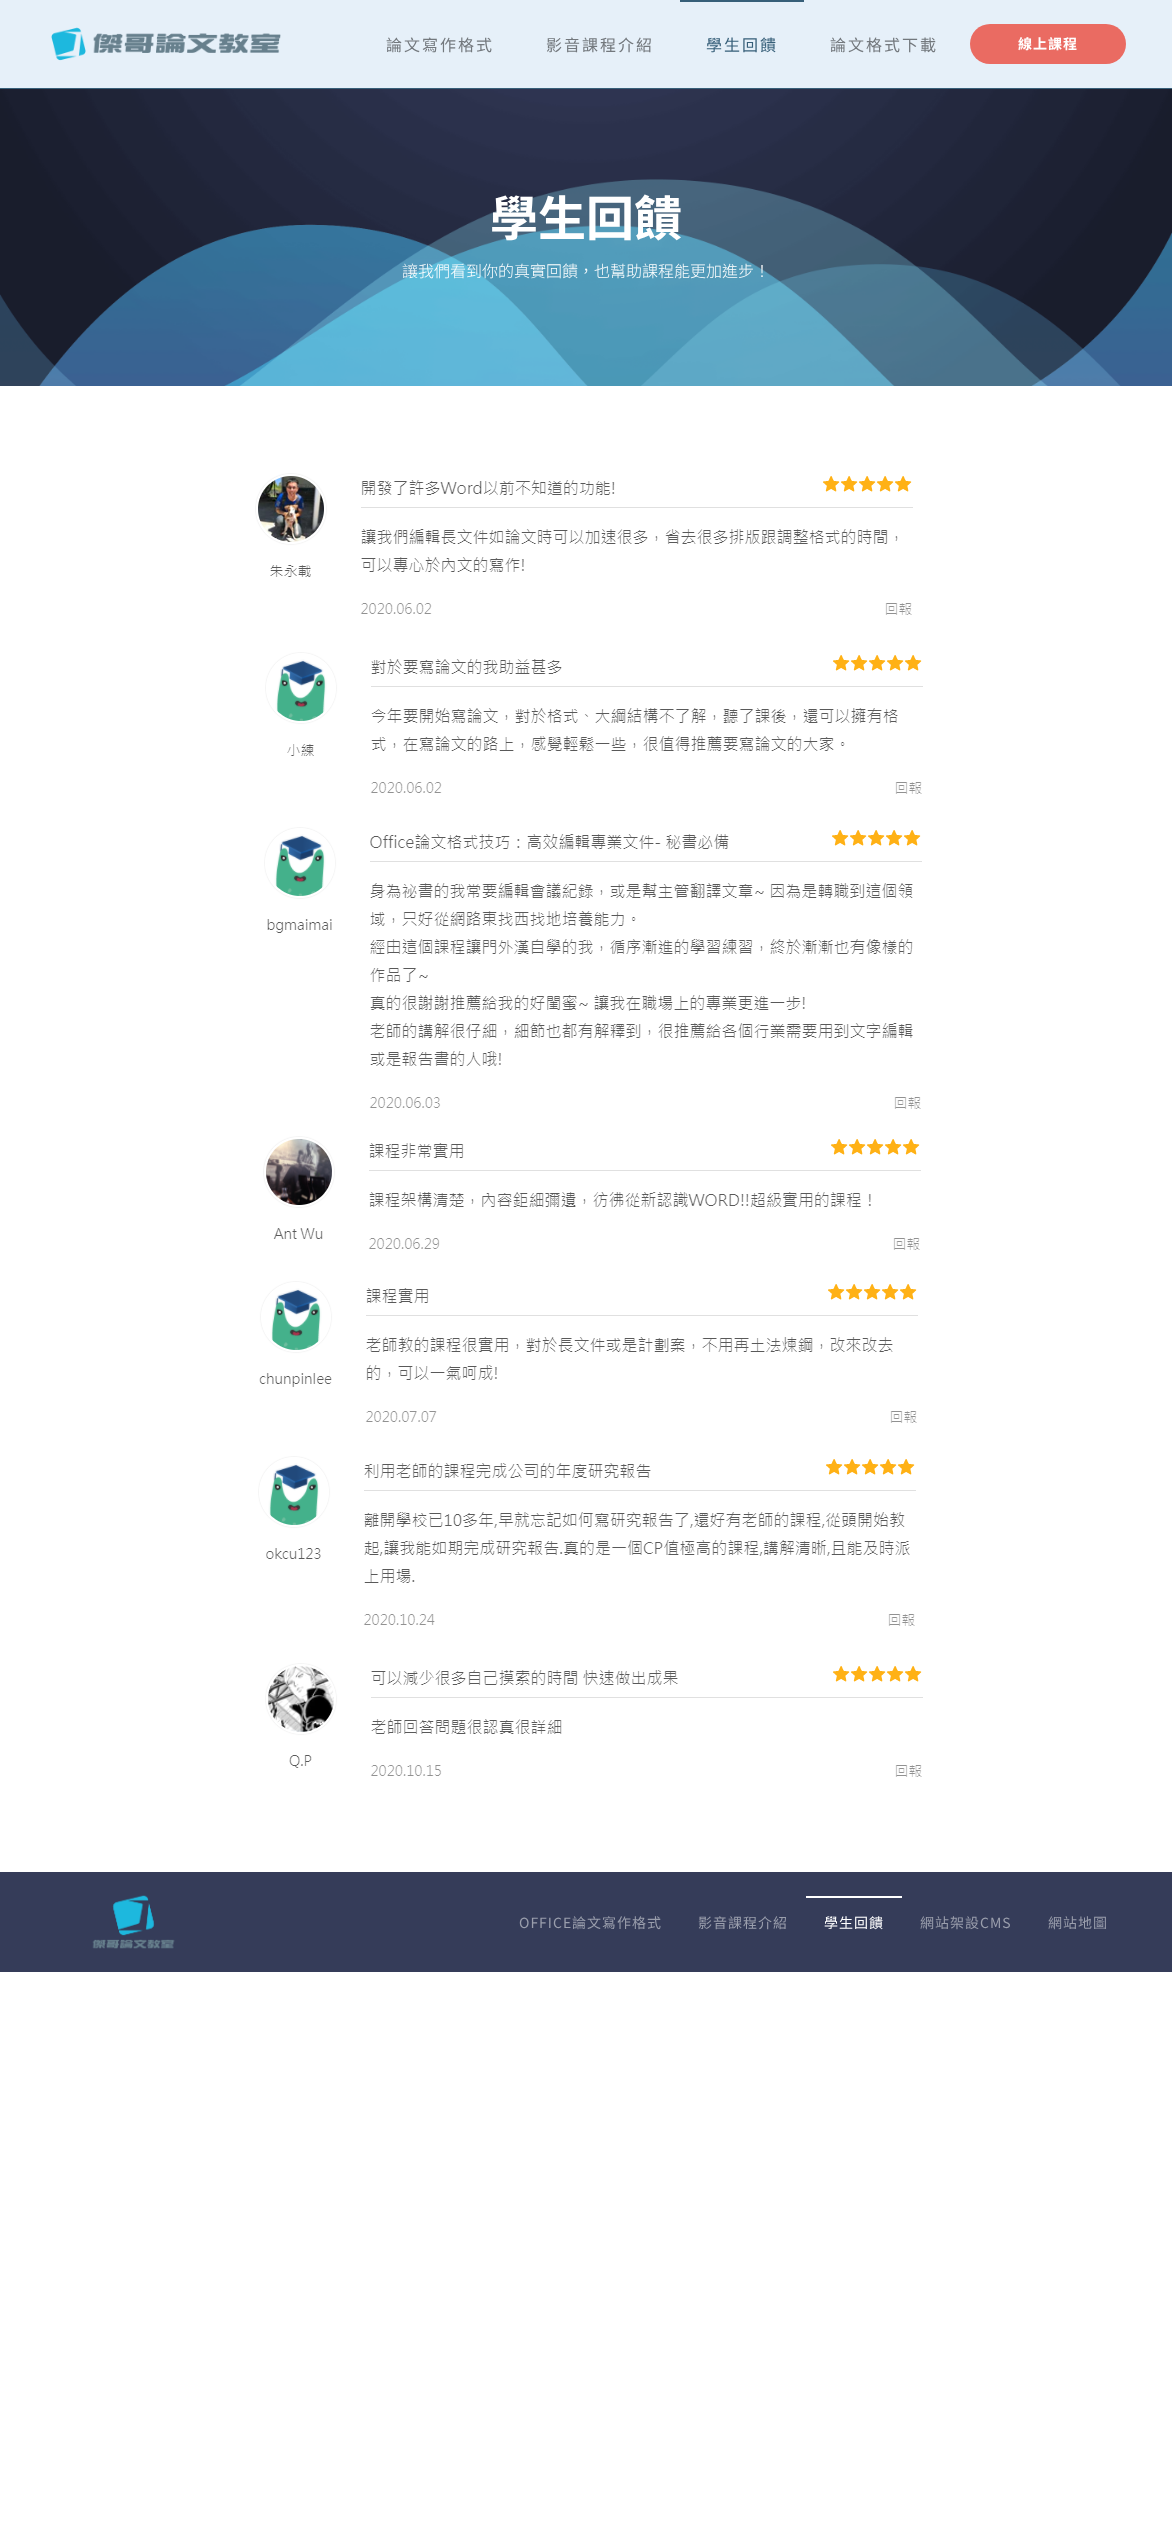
<svg xmlns="http://www.w3.org/2000/svg" width="1172" height="2528">
<style>
.a{font:16px Noto Sans TC;letter-spacing:2px;fill:#73787d}
.b{font:16px Noto Sans TC;letter-spacing:2px;fill:#375f79}
.c{font:bold 14px Noto Sans TC;letter-spacing:1px;fill:#fff}
.d{font:bold 48px Noto Sans TC;fill:#fff}
.e{font:300 16px Noto Sans TC;fill:#fff}
.f{font:14px Noto Sans TC;letter-spacing:1px;fill:#9a9eac}
.g{font:14px Noto Sans TC;letter-spacing:1px;fill:#fff}
</style>
<rect width="100%" height="100%" fill="#fff"/>
<path fill="#e6f0f9" d="M0 0h1172v88H0z"/>
<path fill="#375f79" d="M0 88h1172v1H0z"/>
<image href="1.png" x="51" y="27" width="230" height="34"/>
<path fill="#375f79" d="M680 0h124v2H680z"/>
<rect fill="#ea6b62" x="970" y="24" width="156" height="40" rx="20"/>
<image href="2.png" x="0" y="89" width="1172" height="297"/>
<image href="3.png" x="255" y="473" width="658" height="142"/>
<image href="4.png" x="265" y="652" width="658" height="142"/>
<image href="5.png" x="264" y="827" width="658" height="282"/>
<image href="6.png" x="263" y="1136" width="658" height="114"/>
<image href="7.png" x="259" y="1281" width="659" height="142"/>
<image href="8.png" x="258" y="1456" width="658" height="170"/>
<image href="9.png" x="265" y="1663" width="658" height="114"/>
<path fill="#353c59" d="M0 1872h1172v100H0z"/>
<image href="10.png" x="92" y="1895" width="83" height="54"/>
<path fill="#fff" d="M806 1896h96v2H806z"/>
<text class="a" x="386" y="51">論文寫作格式</text>
<text class="a" x="546" y="51">影音課程介紹</text>
<text class="b" x="706" y="51">學生回饋</text>
<text class="a" x="830" y="51">論文格式下載</text>
<text class="c" x="1018" y="49">線上課程</text>
<text class="d" x="490" y="236">學生回饋</text>
<text class="e" x="402" y="277">讓我們看到你的真實回饋，也幫助課程能更加進步！</text>
<text class="f" x="519" y="1928">OFFICE論文寫作格式</text>
<text class="f" x="698" y="1928">影音課程介紹</text>
<text class="g" x="824" y="1928">學生回饋</text>
<text class="f" x="920" y="1928">網站架設CMS</text>
<text class="f" x="1048" y="1928">網站地圖</text>
</svg>
